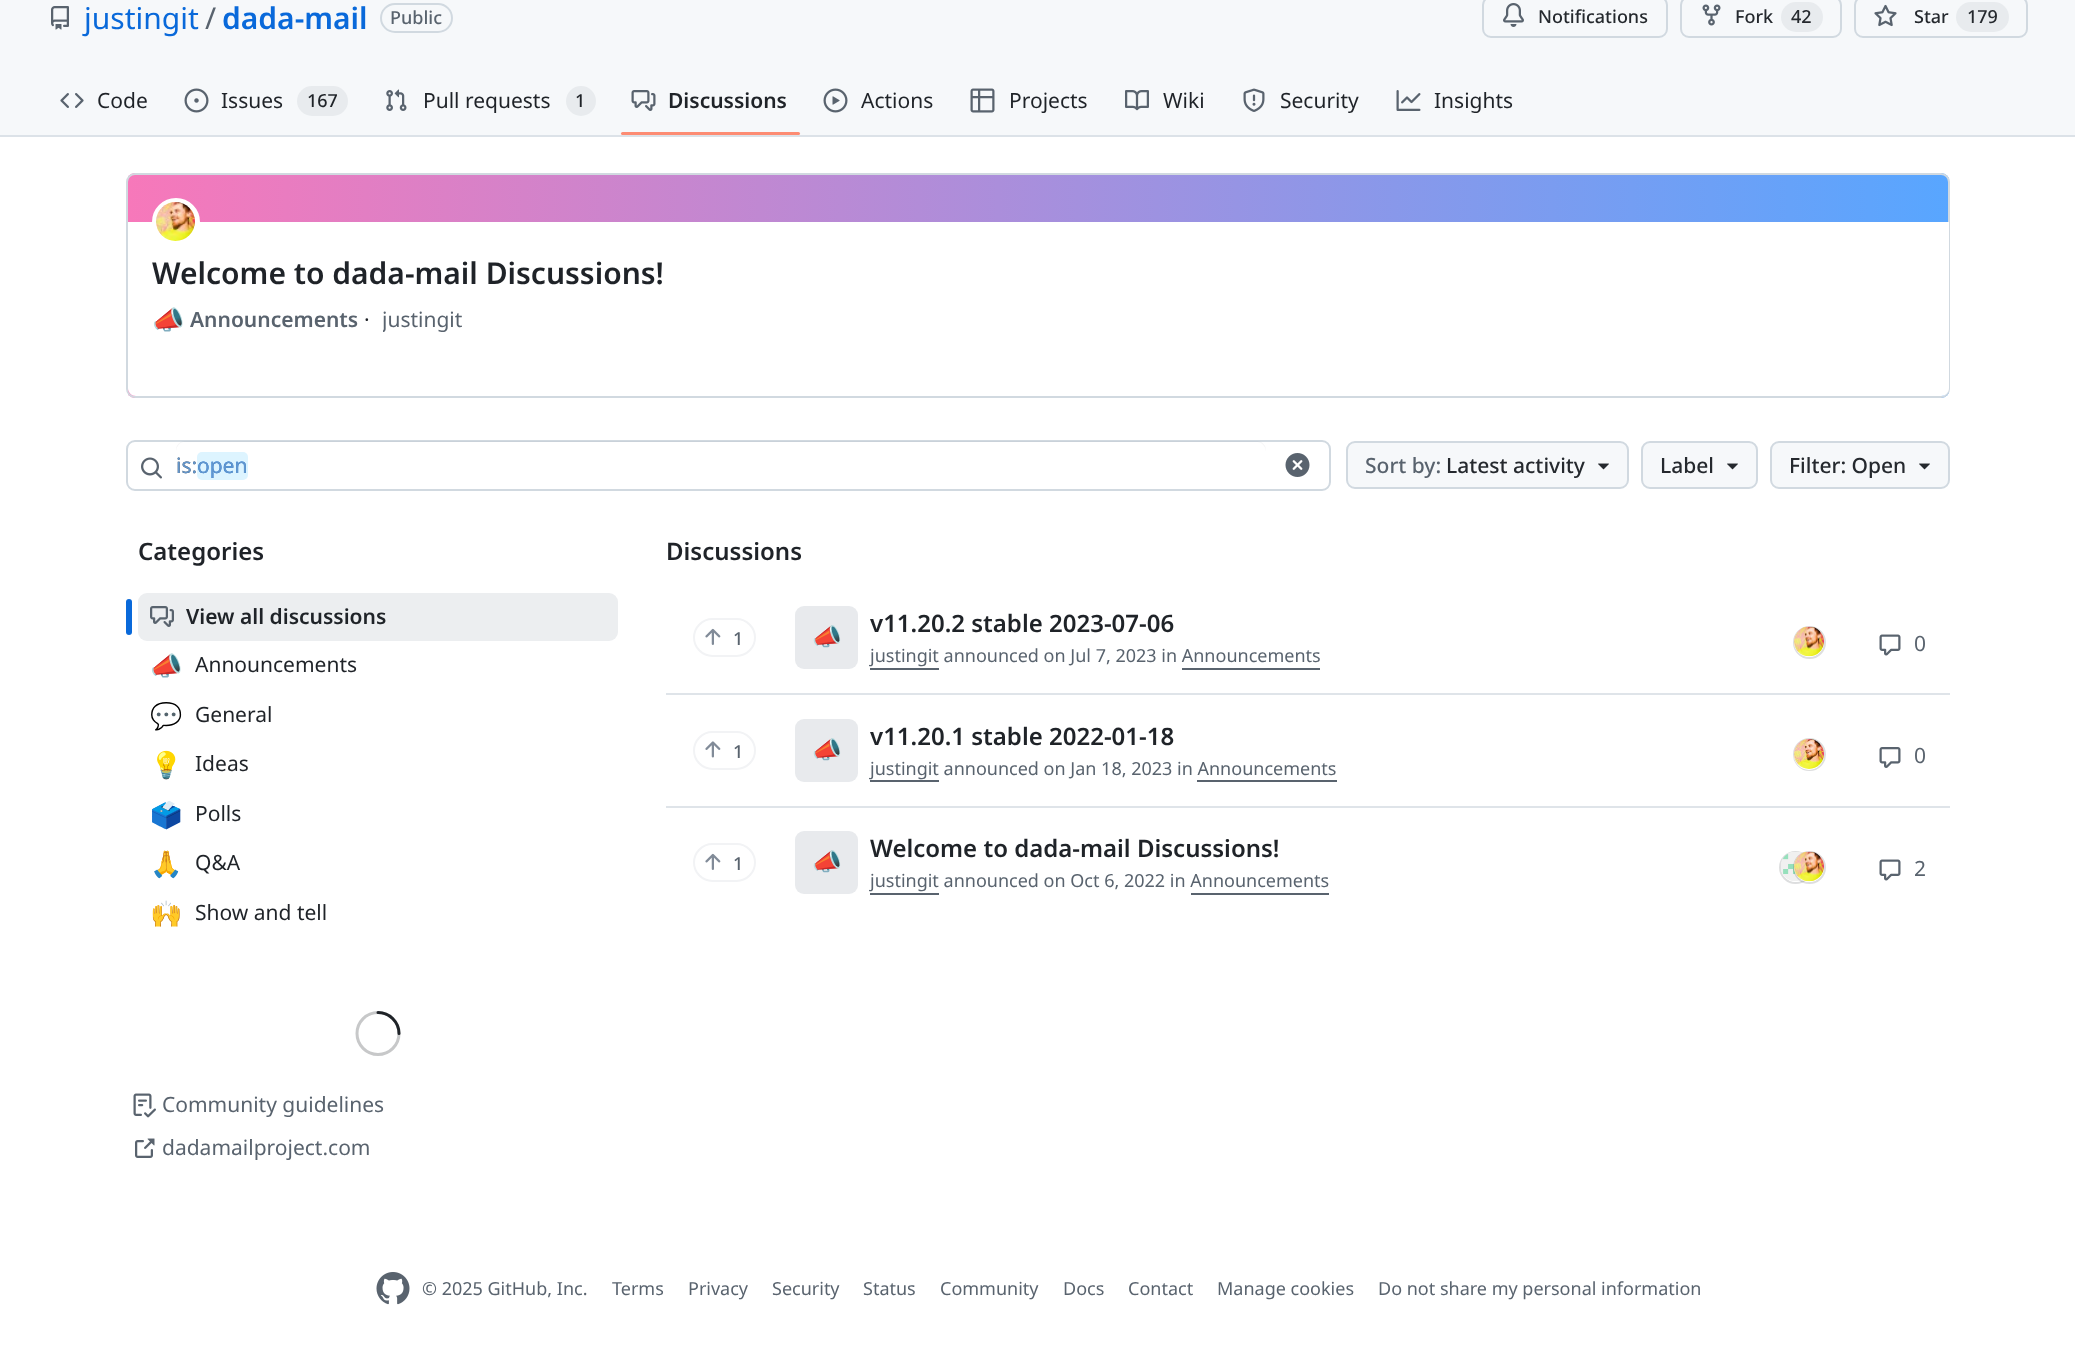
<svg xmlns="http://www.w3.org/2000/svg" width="2075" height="1367">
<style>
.a{font:30px Noto Sans;fill:#0969da}
.b{font:30px Noto Sans;fill:#59636e}
.c{font:600 30px Noto Sans;fill:#0969da}
.d{font:500 18px Noto Sans;fill:#59636e}
.e{font:500 18px Noto Sans;fill:#25292e}
.f{font:21px Noto Sans;fill:#1f2328}
.g{font:500 18px Noto Sans;fill:#1f2328}
.h{font:600 21px Noto Sans;fill:#1f2328}
.i{font:600 30px Noto Sans;fill:#1f2328}
.j{font:26px Noto Color Emoji;fill:#59636e}
.k{font:600 21px Noto Sans;fill:#59636e}
.l{font:21px Noto Sans;fill:#59636e}
.m{font:21px Noto Sans;fill:#0969da}
.n{font:21px Noto Sans;fill:#6396cc}
.o{font:500 21px Noto Sans;fill:#59636e}
.p{font:500 21px Noto Sans;fill:#25292e}
.q{font:600 24px Noto Sans;fill:#1f2328}
.r{font:24px Noto Color Emoji;fill:#59636e}
.s{font:18px Noto Sans;fill:#59636e}
</style>
<defs>
<clipPath id="clip1"><rect x="126" y="173" width="1824" height="225" rx="9"/></clipPath>
<linearGradient id="g1" gradientUnits="userSpaceOnUse" x1="128" y1="285" x2="1949" y2="285"><stop offset="0" stop-color="#f778ba"/><stop offset="1" stop-color="#58a6ff"/></linearGradient>
<clipPath id="clip2"><path d="M152 303h207v32H152z"/></clipPath>
<clipPath id="clip3"><path d="M383 303h79v32H383z"/></clipPath>
</defs>
<rect width="100%" height="100%" fill="#fff"/>
<path fill="#f6f8fa" d="M0 0h2075v135H0z"/>
<image href="1.png" x="51" y="6" width="18" height="24"/>
<rect fill="none" stroke="#d1d9e0" stroke-width="2" x="381" y="4" width="71" height="28" rx="14"/>
<rect fill="none" stroke="#d1d9e0" stroke-width="2" x="1483" y="-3" width="184" height="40" rx="8"/>
<image href="2.png" x="1503" y="3" width="21" height="24"/>
<rect fill="none" stroke="#d1d9e0" stroke-width="2" x="1681" y="-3" width="160" height="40" rx="8"/>
<image href="3.png" x="1702" y="4" width="19" height="22"/>
<rect fill="#e8ebee" x="1781" y="2" width="42" height="30" rx="15"/>
<rect fill="none" stroke="#d1d9e0" stroke-width="2" x="1855" y="-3" width="172" height="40" rx="8"/>
<image href="4.png" x="1874" y="4" width="23" height="23"/>
<rect fill="#e8ebee" x="1956" y="2" width="53" height="30" rx="15"/>
<path fill="#dce2e8" d="M0 135h2075v2H0z"/>
<image href="5.png" x="60" y="93" width="24" height="15"/>
<image href="6.png" x="184" y="88" width="25" height="25"/>
<rect fill="#e8ebee" x="297" y="86" width="51" height="30" rx="15"/>
<image href="7.png" x="386" y="89" width="21" height="22"/>
<circle fill="#e8ebee" cx="581" cy="101" r="15"/>
<image href="8.png" x="631" y="90" width="25" height="21"/>
<rect fill="#fd8c73" x="621" y="132" width="179" height="3" rx="1.5"/>
<image href="9.png" x="823" y="88" width="25" height="25"/>
<image href="10.png" x="970" y="88" width="25" height="25"/>
<image href="11.png" x="1125" y="90" width="24" height="21"/>
<image href="12.png" x="1243" y="88" width="22" height="24"/>
<image href="13.png" x="1396" y="90" width="25" height="21"/>
<g clip-path="url(#clip1)">
<path fill="url(#g1)" d="M128 173h1821v225H128z"/>
</g>
<rect fill="none" stroke="#d1d9e0" stroke-width="2" x="127" y="174" width="1822" height="223" rx="8"/>
<path fill="#fff" d="M128 222h1821v166c0 4.5-3.5 8-8 8h-1805c-4.5 0-8-3.5-8-8z"/>
<circle fill="#fff" stroke="#fff" stroke-width="5" cx="176" cy="222" r="21.5"/>
<image href="14.png" x="156" y="202" width="39" height="39"/>
<rect fill="none" stroke="#d1d9e0" stroke-width="2" x="127" y="441" width="1203" height="49" rx="8"/>
<image href="15.png" x="141" y="457" width="21" height="22"/>
<rect fill="#ddf4ff" x="197" y="452" width="51" height="28" rx="5"/>
<path fill="#1f23280a" d="M184 442h1073c5 0 9 5 9 10v-2c0-5-4-9-9-9h-1072c-5 0-9 4-9 9v2c0-5 4-10 8-10z"/>
<image href="16.png" x="1285" y="453" width="25" height="24"/>
<rect fill="#f6f8fa" stroke="#d1d9e0" stroke-width="2" x="1347" y="442" width="281" height="46" rx="8"/>
<image href="17.png" x="1598" y="463" width="11" height="7"/>
<rect fill="#f6f8fa" stroke="#d1d9e0" stroke-width="2" x="1642" y="442" width="115" height="46" rx="8"/>
<image href="17.png" x="1727" y="463" width="11" height="7"/>
<rect fill="#f6f8fa" stroke="#d1d9e0" stroke-width="2" x="1771" y="442" width="178" height="46" rx="8"/>
<image href="17.png" x="1919" y="463" width="11" height="7"/>
<rect fill="#eceef0" x="138" y="593" width="480" height="48" rx="9"/>
<rect fill="#0969da" x="126" y="599" width="6" height="36" rx="3"/>
<image href="18.png" x="150" y="606" width="24" height="21"/>
<circle fill="none" stroke="#c7c8c9" stroke-width="3" cx="378" cy="1033.5" r="21"/>
<path fill="none" stroke="#1f2328" stroke-width="3" stroke-linecap="round" d="M399 1033.5c0-11.5-9.5-21-21-21"/>
<image href="19.png" x="133" y="1093" width="23" height="25"/>
<image href="20.png" x="135" y="1138" width="20" height="20"/>
<rect fill="none" stroke="#f2f3f5" stroke-width="2" x="694" y="619" width="61" height="37" rx="18.5"/>
<image href="21.png" x="705" y="628" width="16" height="17"/>
<rect fill="#e8eaed" x="795" y="606" width="63" height="63" rx="9"/>
<path fill="#59636e" d="M870 668h69v2H870z"/>
<path fill="#59636e" d="M1182 668h138v2H1182z"/>
<circle fill="none" stroke="#dddedf" stroke-width="2" cx="1809.5" cy="642.5" r="15.5"/>
<circle fill="#fff" cx="1809" cy="642" r="15"/>
<image href="22.png" x="1794" y="626" width="30" height="31"/>
<image href="23.png" x="1879" y="634" width="22" height="22"/>
<path fill="#dfe4e9" d="M666 693h1284v2H666z"/>
<rect fill="none" stroke="#f2f3f5" stroke-width="2" x="694" y="732" width="61" height="37" rx="18.5"/>
<image href="24.png" x="705" y="741" width="16" height="17"/>
<rect fill="#e8eaed" x="795" y="719" width="63" height="63" rx="9"/>
<path fill="#59636e" d="M870 780h69v2H870z"/>
<path fill="#59636e" d="M1197 780h140v2H1197z"/>
<circle fill="none" stroke="#dddedf" stroke-width="2" cx="1809.5" cy="754.5" r="15.5"/>
<circle fill="#fff" cx="1809" cy="755" r="15"/>
<image href="25.png" x="1794" y="739" width="30" height="30"/>
<image href="26.png" x="1879" y="747" width="22" height="21"/>
<path fill="#dfe4e9" d="M666 806h1284v2H666z"/>
<rect fill="none" stroke="#f2f3f5" stroke-width="2" x="694" y="844" width="61" height="37" rx="18.5"/>
<image href="21.png" x="705" y="853" width="16" height="17"/>
<rect fill="#e8eaed" x="795" y="831" width="63" height="63" rx="9"/>
<path fill="#59636e" d="M870 893h69v2H870z"/>
<path fill="#59636e" d="M1191 893h138v2H1191z"/>
<circle fill="none" stroke="#dddedf" stroke-width="2" cx="1795.5" cy="867.5" r="15.5"/>
<circle fill="#fff" cx="1796" cy="867" r="15"/>
<image href="27.png" x="1781" y="852" width="22" height="29"/>
<circle fill="none" stroke="#1f232826" stroke-width="2" cx="1809.5" cy="867.5" r="15.5"/>
<circle fill="#fff" cx="1809" cy="867" r="15"/>
<image href="28.png" x="1794" y="851" width="30" height="31"/>
<image href="23.png" x="1879" y="859" width="22" height="22"/>
<image href="29.png" x="376" y="1272" width="34" height="33"/>
<text class="a" x="84" y="29">justingit</text>
<text class="b" x="205" y="29">/</text>
<text class="c" x="222" y="29">dada-mail</text>
<text class="d" x="390" y="24">Public</text>
<text class="e" x="1538" y="23">Notifications</text>
<text class="e" x="1735" y="23">Fork</text>
<text class="e" x="1791" y="23">42</text>
<text class="e" x="1914" y="23">Star</text>
<text class="e" x="1967" y="23">179</text>
<text class="f" x="97" y="108">Code</text>
<text class="f" x="221" y="108">Issues</text>
<text class="g" x="307" y="107">167</text>
<text class="f" x="423" y="108">Pull requests</text>
<text class="g" x="575" y="107">1</text>
<text class="h" x="668" y="108">Discussions</text>
<text class="f" x="861" y="108">Actions</text>
<text class="f" x="1009" y="108">Projects</text>
<text class="f" x="1163" y="108">Wiki</text>
<text class="f" x="1280" y="108">Security</text>
<text class="f" x="1434" y="108">Insights</text>
<text class="i" x="152" y="284">Welcome to dada-mail Discussions!</text>
<g clip-path="url(#clip2)">
<text class="j" x="152" y="329">📣</text>
</g>
<text class="k" x="190" y="327">Announcements</text>
<text class="f" x="364" y="327">·</text>
<g clip-path="url(#clip3)">
<text class="l" x="382" y="327">justingit</text>
</g>
<text class="f" x="176" y="473">is:</text>
<text class="m" x="197" y="473">open</text>
<text class="n" x="176" y="473">is:open</text>
<text class="o" x="1365" y="473">Sort by:</text>
<text class="p" x="1446" y="473">Latest activity</text>
<text class="p" x="1660" y="473">Label</text>
<text class="p" x="1789" y="473">Filter: Open</text>
<text class="q" x="138" y="560">Categories</text>
<text class="h" x="186" y="624">View all discussions</text>
<text class="j" x="150" y="675">📣</text>
<text class="f" x="195" y="672">Announcements</text>
<text class="j" x="150" y="725">💬</text>
<text class="f" x="195" y="722">General</text>
<text class="j" x="150" y="774">💡</text>
<text class="f" x="195" y="771">Ideas</text>
<text class="j" x="150" y="824">🗳️</text>
<text class="f" x="195" y="821">Polls</text>
<text class="j" x="150" y="873">🙏</text>
<text class="f" x="195" y="870">Q&amp;A</text>
<text class="j" x="150" y="923">🙌</text>
<text class="f" x="195" y="920">Show and tell</text>
<text class="l" x="162" y="1112">Community guidelines</text>
<text class="l" x="162" y="1155">dadamailproject.com</text>
<text class="q" x="666" y="560">Discussions</text>
<text class="d" x="733" y="645">1</text>
<text class="r" x="812" y="645">📣</text>
<text class="q" x="870" y="632">v11.20.2 stable 2023-07-06</text>
<text class="s" x="870" y="662">justingit announced on Jul 7, 2023 in Announcements</text>
<text class="l" x="1914" y="651">0</text>
<text class="d" x="733" y="758">1</text>
<text class="r" x="812" y="758">📣</text>
<text class="q" x="870" y="745">v11.20.1 stable 2022-01-18</text>
<text class="s" x="870" y="775">justingit announced on Jan 18, 2023 in Announcements</text>
<text class="l" x="1914" y="763">0</text>
<text class="d" x="733" y="870">1</text>
<text class="r" x="812" y="870">📣</text>
<text class="q" x="870" y="857">Welcome to dada-mail Discussions!</text>
<text class="s" x="870" y="887">justingit announced on Oct 6, 2022 in Announcements</text>
<text class="l" x="1914" y="876">2</text>
<text class="s" x="422" y="1295">© 2025 GitHub, Inc.</text>
<text class="s" x="612" y="1295">Terms</text>
<text class="s" x="688" y="1295">Privacy</text>
<text class="s" x="772" y="1295">Security</text>
<text class="s" x="863" y="1295">Status</text>
<text class="s" x="940" y="1295">Community</text>
<text class="s" x="1063" y="1295">Docs</text>
<text class="s" x="1128" y="1295">Contact</text>
<text class="s" x="1217" y="1295">Manage cookies</text>
<text class="s" x="1378" y="1295">Do not share my personal information</text>
</svg>
